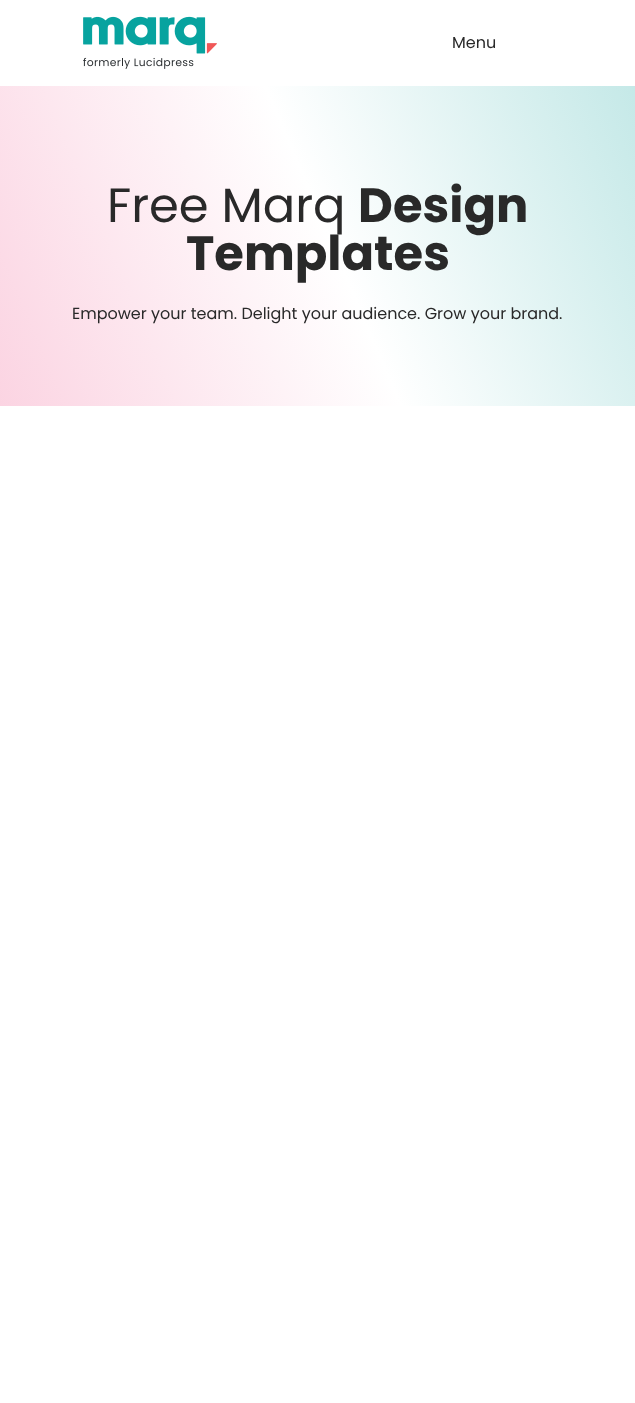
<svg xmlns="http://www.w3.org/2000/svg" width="635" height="1403">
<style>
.a{font:16px Poppins;fill:#292929}
.b{font:48px Poppins;fill:#292929}
.c{font:bold 48px Poppins;fill:#292929}
</style>
<defs>
<linearGradient id="g1" gradientUnits="userSpaceOnUse" x1="-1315" y1="939" x2="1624" y2="-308"><stop offset="0" stop-color="#ed2e73"/><stop offset="0.56" stop-color="#fff"/><stop offset="1" stop-color="#0fa39e"/></linearGradient>
</defs>
<rect width="100%" height="100%" fill="#fff"/>
<image href="1.png" x="83" y="16" width="134" height="53"/>
<path fill="url(#g1)" d="M0 86h635v320H0z"/>
<text class="a" x="452" y="48">Menu</text>
<text class="b" x="107" y="222">Free Marq</text>
<text class="c" x="358" y="222">Design</text>
<text class="c" x="186" y="270">Templates</text>
<text class="a" x="72" y="319">Empower your team. Delight your audience. Grow your brand.</text>
</svg>
